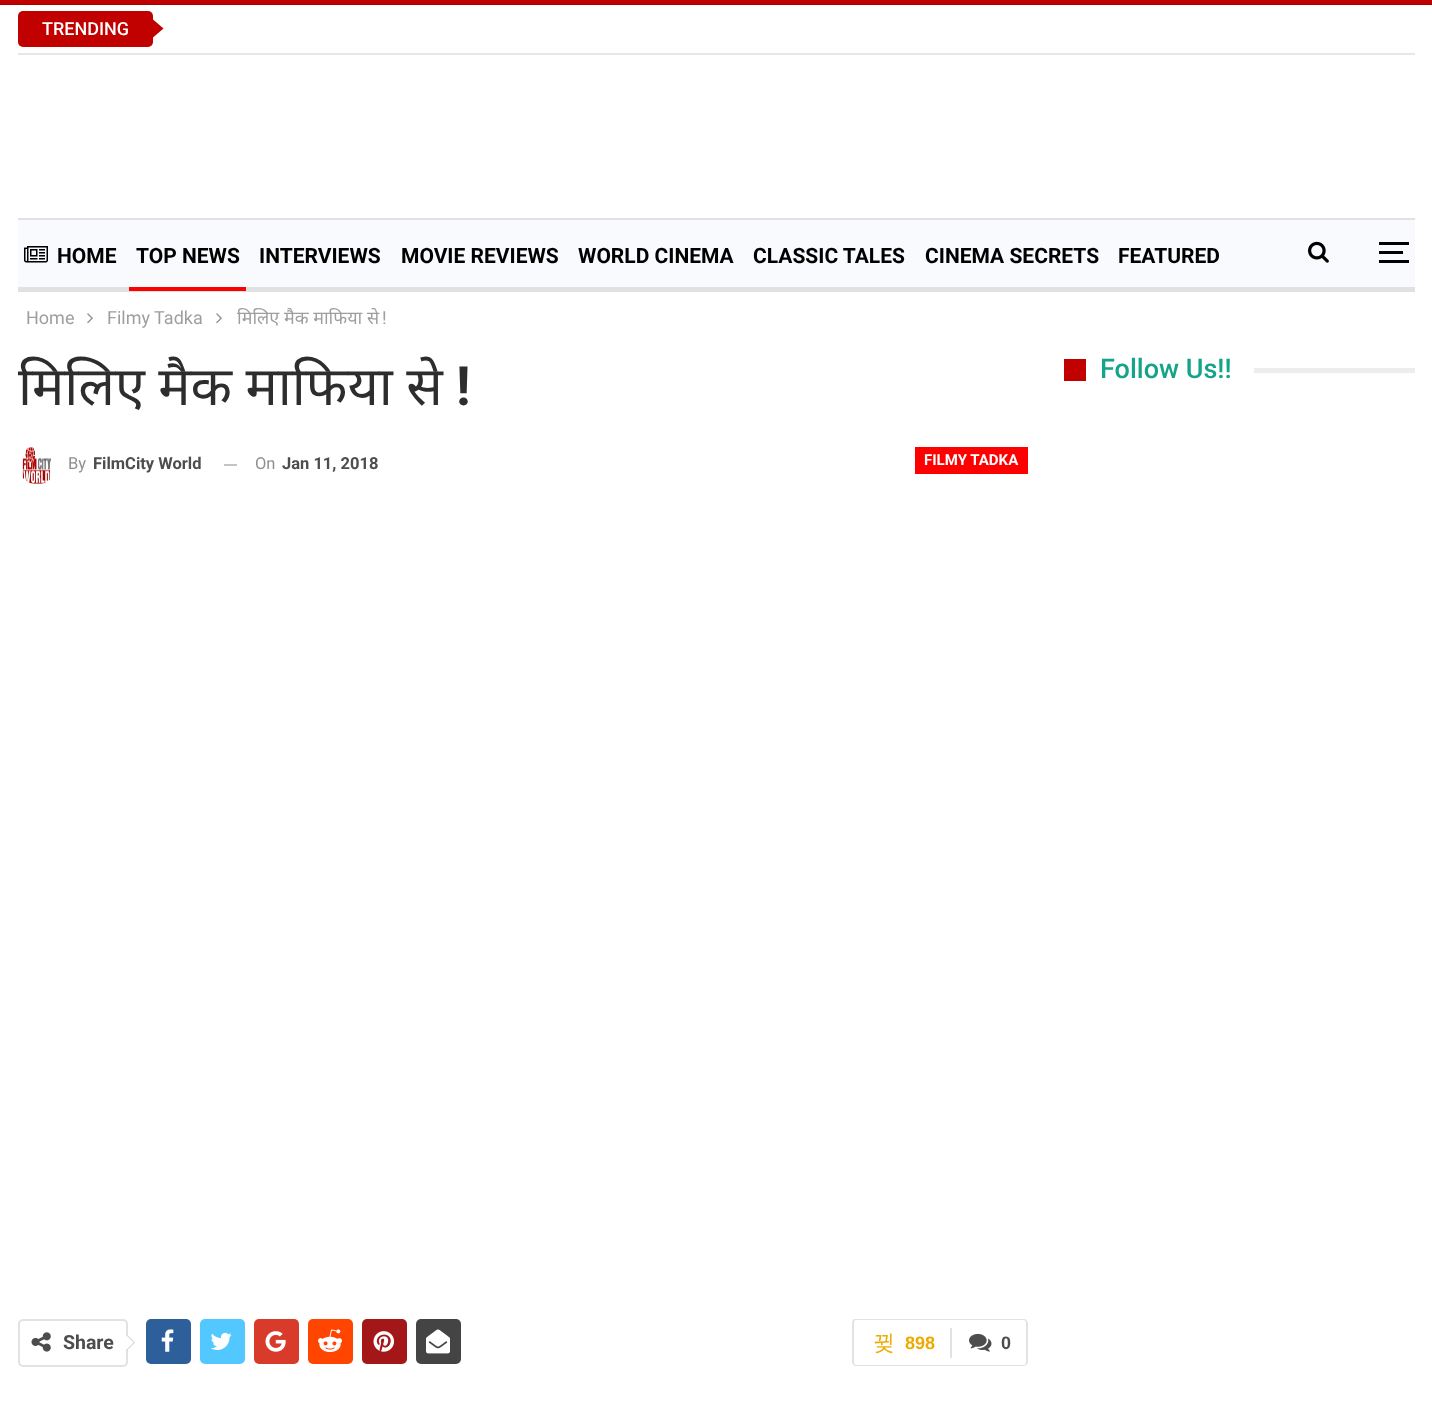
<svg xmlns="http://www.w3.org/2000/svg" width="1432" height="1407">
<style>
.a{font:500 18px Roboto;fill:#fff}
.b{font:bold 21px Roboto;fill:#000}
.c{font:18px Roboto;fill:#9e9e9e}
.d{font:18px Noto Sans;fill:#9e9e9e}
.e{font:54px Noto Sans;fill:#2d2d2d}
.f{font:bold 54px Roboto;fill:#2d2d2d}
.g{font:16.5px Roboto;fill:#8f8f8f}
.h{font:bold 16.5px Roboto;fill:#4d4d4d}
.i{font:bold 15px Roboto;fill:#fff}
.j{font:bold 19.5px Roboto;fill:#4d4d4d}
.k{font:500 22px WenQuanYi Zen Hei;fill:#edaa02}
.l{font:bold 18px Liberation Sans;fill:#edaa02}
.m{font:bold 18px Liberation Sans;fill:#4d4d4d}
.n{font:500 27px Roboto;fill:#15a389}
</style>
<defs>
<clipPath id="clip1"><path d="M852 1319h176v48H852z"/></clipPath>
</defs>
<rect width="100%" height="100%" fill="#c10000"/>
<path fill="#00000045" filter="blur(1.5px)" d="M0 5h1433v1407H0z"/>
<path fill="#fff" d="M0 5h1432v1402H0z"/>
<path fill="#e7e7e7" d="M18 53h1397v2H18z"/>
<rect fill="#c10000" x="18" y="11" width="135" height="36" rx="5"/>
<path fill="#c10000" d="M153 37.5v-18l10.5 9z"/>
<path fill="#f9fafd" d="M18 220h1397v67H18z"/>
<path fill="#e0e1e3" d="M18 218h1397v2H18z"/>
<path fill="#e0e1e3" d="M18 287h1397v5H18z"/>
<image href="1.png" x="24" y="246" width="24" height="17"/>
<path fill="#f00" d="M129 287h117v4H129z"/>
<image href="2.png" x="1308" y="241" width="21" height="22"/>
<path fill="#000" d="M1379 251h24v3H1379z"/>
<path fill="#000" d="M1379 242h30v3H1379z"/>
<path fill="#000" d="M1379 260h30v3H1379z"/>
<image href="3.png" x="87" y="313" width="6" height="11"/>
<image href="3.png" x="216" y="313" width="6" height="11"/>
<image href="4.png" x="22" y="446" width="29" height="38"/>
<path fill="#c4c4c4" d="M224 464h13v2H224z"/>
<path fill="#f00" d="M915 447h113v27H915z"/>
<rect fill="none" stroke="#e2e2e2" stroke-width="2" x="19" y="1320" width="108" height="46" rx="4"/>
<image href="5.png" x="31" y="1332" width="20" height="20"/>
<path fill="#d7d7d7" d="M126 1351.5v-18l9 9z"/>
<path fill="#fff" d="M126 1350v-15l7.5 7.5z"/>
<rect fill="#2d5f9a" x="146" y="1319" width="45" height="45" rx="5"/>
<image href="6.png" x="161" y="1329" width="13" height="23"/>
<rect fill="#53c7ff" x="200" y="1319" width="45" height="45" rx="5"/>
<image href="7.png" x="210" y="1332" width="22" height="18"/>
<rect fill="#d93b2b" x="254" y="1319" width="45" height="45" rx="5"/>
<image href="8.png" x="265" y="1331" width="21" height="21"/>
<rect fill="#ff4500" x="308" y="1319" width="45" height="45" rx="5"/>
<image href="9.png" x="318" y="1329" width="24" height="24"/>
<rect fill="#a41719" x="362" y="1319" width="45" height="45" rx="5"/>
<image href="10.png" x="373" y="1331" width="22" height="21"/>
<rect fill="#444" x="416" y="1319" width="45" height="45" rx="5"/>
<image href="11.png" x="426" y="1329" width="24" height="25"/>
<g clip-path="url(#clip1)">
<path fill="#e2e2e2" fill-rule="evenodd" d="M856 1318h94v48h-94c-2 0-4-2-4-4v-39c0-2 2-5 4-5zm0 2h94v45h-94c-1 0-2-1-2-3v-39c0-2 1-3 2-3z"/>
<path fill="#e2e2e2" fill-rule="evenodd" d="M950 1318h73c2 0 5 3 5 5v39c0 2-3 4-5 4h-73zm0 2h73c2 0 3 1 3 3v39c0 2-1 3-3 3h-73z"/>
</g>
<path fill="#e2e2e2" d="M950 1328h2v30H950z"/>
<image href="12.png" x="969" y="1333" width="23" height="19"/>
<path fill="#c10000" d="M1064 359h22v22H1064z"/>
<path fill="#ededed" d="M1254 368h161v5H1254z"/>
<text class="a" x="42" y="35">TRENDING</text>
<text class="b" x="57" y="263">HOME</text>
<text class="b" x="136" y="263">TOP NEWS</text>
<text class="b" x="259" y="263">INTERVIEWS</text>
<text class="b" x="401" y="263">MOVIE REVIEWS</text>
<text class="b" x="578" y="263">WORLD CINEMA</text>
<text class="b" x="753" y="263">CLASSIC TALES</text>
<text class="b" x="925" y="263">CINEMA SECRETS</text>
<text class="b" x="1118" y="263">FEATURED</text>
<text class="c" x="26" y="324">Home</text>
<text class="c" x="107" y="324">Filmy Tadka</text>
<text class="d" x="237" y="324">मिलिए मैक माफिया से</text>
<text class="c" x="382" y="324">!</text>
<text class="e" x="18" y="405" word-spacing="-0.5">मिलिए मैक माफिया से</text>
<text class="f" x="456" y="405">!</text>
<text class="g" x="68" y="469">By</text>
<text class="h" x="93" y="469">FilmCity World</text>
<text class="g" x="255" y="469">On</text>
<text class="h" x="282" y="469">Jan 11, 2018</text>
<text class="i" x="924" y="465">FILMY TADKA</text>
<text class="j" x="63" y="1349">Share</text>
<text class="k" x="873" y="1350">뀢</text>
<text class="l" x="905" y="1349">898</text>
<text class="m" x="1001" y="1349">0</text>
<text class="n" x="1100" y="378">Follow Us!!</text>
</svg>
